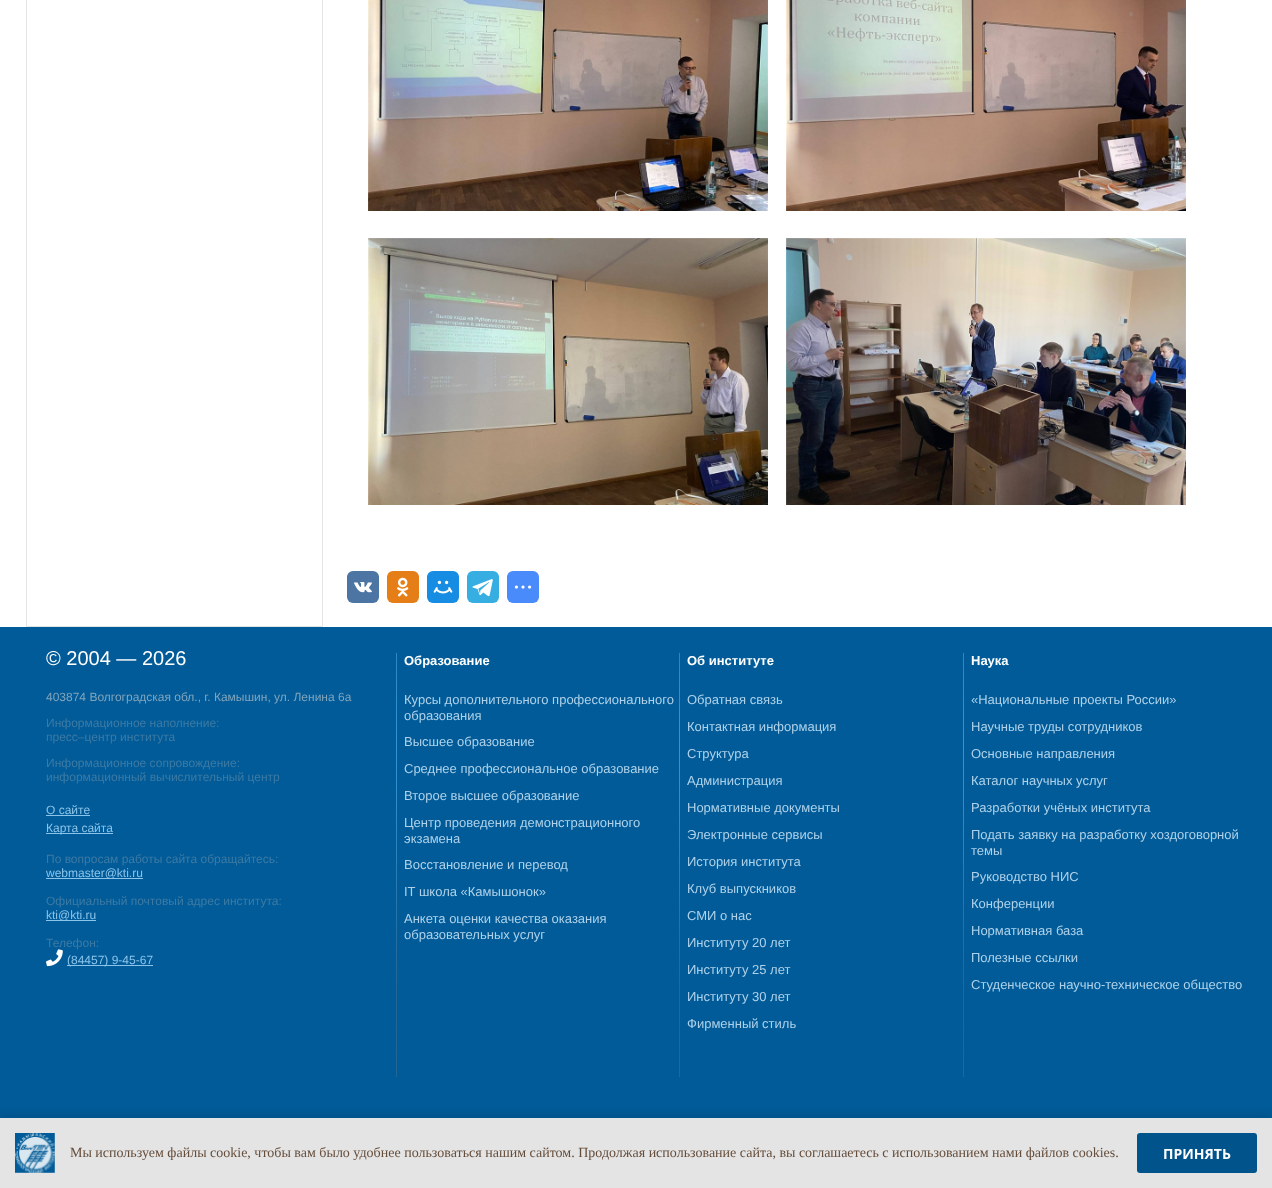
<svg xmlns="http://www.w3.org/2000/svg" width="1272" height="1188">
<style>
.a{font:20px Liberation Sans;fill:#fff}
.b{font:12px Liberation Sans;fill:#80a4bc}
.c{font:12px Liberation Sans;fill:#3c7aa4}
.d{font:12px Liberation Sans;fill:#8bc4ea}
.e{font:bold 13px Liberation Sans;fill:#fff}
.f{font:13px Liberation Sans;fill:#afd2ea}
.g{font:14px Liberation Serif;fill:#654d3b}
.h{font:bold 14px Open Sans;fill:#fff}
</style>
<rect width="100%" height="100%" fill="#fff"/>
<image href="1.png" x="0" y="627" width="1272" height="491"/>
<path fill="none" stroke="#e4e4e4" d="M26.5 -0.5h296v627H26.5z"/>
<image href="2.png" x="368" y="0" width="400" height="211"/>
<image href="3.png" x="786" y="0" width="400" height="211"/>
<image href="4.png" x="368" y="238" width="400" height="267"/>
<image href="5.png" x="786" y="238" width="400" height="267"/>
<rect fill="#4d75a3" x="347" y="571" width="32" height="32" rx="6"/>
<image href="6.png" x="354" y="582" width="18" height="11"/>
<rect fill="#e67e17" x="387" y="571" width="32" height="32" rx="6"/>
<image href="7.png" x="397" y="577" width="12" height="20"/>
<rect fill="#168de2" x="427" y="571" width="32" height="32" rx="6"/>
<image href="8.png" x="433" y="580" width="20" height="14"/>
<rect fill="#37aee2" x="467" y="571" width="32" height="32" rx="6"/>
<image href="9.png" x="472" y="579" width="21" height="18"/>
<rect fill="#498bfa" x="507" y="571" width="32" height="32" rx="6"/>
<image href="10.png" x="514" y="585" width="18" height="4"/>
<path fill="#8bc4ea" d="M46 815h44v1H46z"/>
<path fill="#8bc4ea" d="M46 833h67v1H46z"/>
<path fill="#8bc4ea" d="M46 878h97v1H46z"/>
<path fill="#8bc4ea" d="M46 920h50v1H46z"/>
<path fill="#8bc4ea" d="M67 965h86v1H67z"/>
<image href="12.png" x="396" y="653" width="1" height="424"/>
<image href="12.png" x="679" y="653" width="1" height="424"/>
<image href="12.png" x="963" y="653" width="1" height="424"/>
<path fill="#0000001a" filter="blur(5px)" d="M0 1115h1272v70H0z"/>
<path fill="#e4e4e4" d="M0 1118h1272v70H0z"/>
<image href="13.png" x="15" y="1133" width="40" height="40"/>
<rect fill="#00538b" x="1137" y="1133" width="120" height="40" rx="3"/>
<text class="a" x="46" y="665">© 2004 — 2026</text>
<text class="b" x="46" y="701">403874 Волгоградская обл., г. Камышин, ул. Ленина 6а</text>
<text class="c" x="46" y="727">Информационное наполнение:</text>
<text class="c" x="46" y="741">пресс–центр института</text>
<text class="c" x="46" y="767">Информационное сопровождение:</text>
<text class="c" x="46" y="781">информационный вычислительный центр</text>
<text class="d" x="46" y="814">О сайте</text>
<text class="d" x="46" y="832">Карта сайта</text>
<text class="c" x="46" y="863">По вопросам работы сайта обращайтесь:</text>
<text class="d" x="46" y="877">webmaster@kti.ru</text>
<text class="c" x="46" y="905">Официальный почтовый адрес института:</text>
<text class="d" x="46" y="919">kti@kti.ru</text>
<text class="c" x="46" y="947">Телефон:</text>
<image href="11.png" x="46" y="949" width="17" height="18"/>
<text class="d" x="67" y="964">(84457) 9-45-67</text>
<text class="e" x="404" y="665">Образование</text>
<text class="f" x="404" y="704">Курсы дополнительного профессионального</text>
<text class="f" x="404" y="720">образования</text>
<text class="f" x="404" y="746">Высшее образование</text>
<text class="f" x="404" y="773">Среднее профессиональное образование</text>
<text class="f" x="404" y="800">Второе высшее образование</text>
<text class="f" x="404" y="827">Центр проведения демонстрационного</text>
<text class="f" x="404" y="843">экзамена</text>
<text class="f" x="404" y="869">Восстановление и перевод</text>
<text class="f" x="404" y="896">IT школа «Камышонок»</text>
<text class="f" x="404" y="923">Анкета оценки качества оказания</text>
<text class="f" x="404" y="939">образовательных услуг</text>
<text class="e" x="687" y="665">Об институте</text>
<text class="f" x="687" y="704">Обратная связь</text>
<text class="f" x="687" y="731">Контактная информация</text>
<text class="f" x="687" y="758">Структура</text>
<text class="f" x="687" y="785">Администрация</text>
<text class="f" x="687" y="812">Нормативные документы</text>
<text class="f" x="687" y="839">Электронные сервисы</text>
<text class="f" x="687" y="866">История института</text>
<text class="f" x="687" y="893">Клуб выпускников</text>
<text class="f" x="687" y="920">СМИ о нас</text>
<text class="f" x="687" y="947">Институту 20 лет</text>
<text class="f" x="687" y="974">Институту 25 лет</text>
<text class="f" x="687" y="1001">Институту 30 лет</text>
<text class="f" x="687" y="1028">Фирменный стиль</text>
<text class="e" x="971" y="665">Наука</text>
<text class="f" x="971" y="704">«Национальные проекты России»</text>
<text class="f" x="971" y="731">Научные труды сотрудников</text>
<text class="f" x="971" y="758">Основные направления</text>
<text class="f" x="971" y="785">Каталог научных услуг</text>
<text class="f" x="971" y="812">Разработки учёных института</text>
<text class="f" x="971" y="839">Подать заявку на разработку хоздоговорной</text>
<text class="f" x="971" y="855">темы</text>
<text class="f" x="971" y="881">Руководство НИС</text>
<text class="f" x="971" y="908">Конференции</text>
<text class="f" x="971" y="935">Нормативная база</text>
<text class="f" x="971" y="962">Полезные ссылки</text>
<text class="f" x="971" y="989">Студенческое научно-техническое общество</text>
<text class="g" x="70" y="1157">Мы используем файлы cookie, чтобы вам было удобнее пользоваться нашим сайтом. Продолжая использование сайта, вы соглашаетесь c использованием нами файлов cookies.</text>
<text class="h" x="1163" y="1159">ПРИНЯТЬ</text>
</svg>
